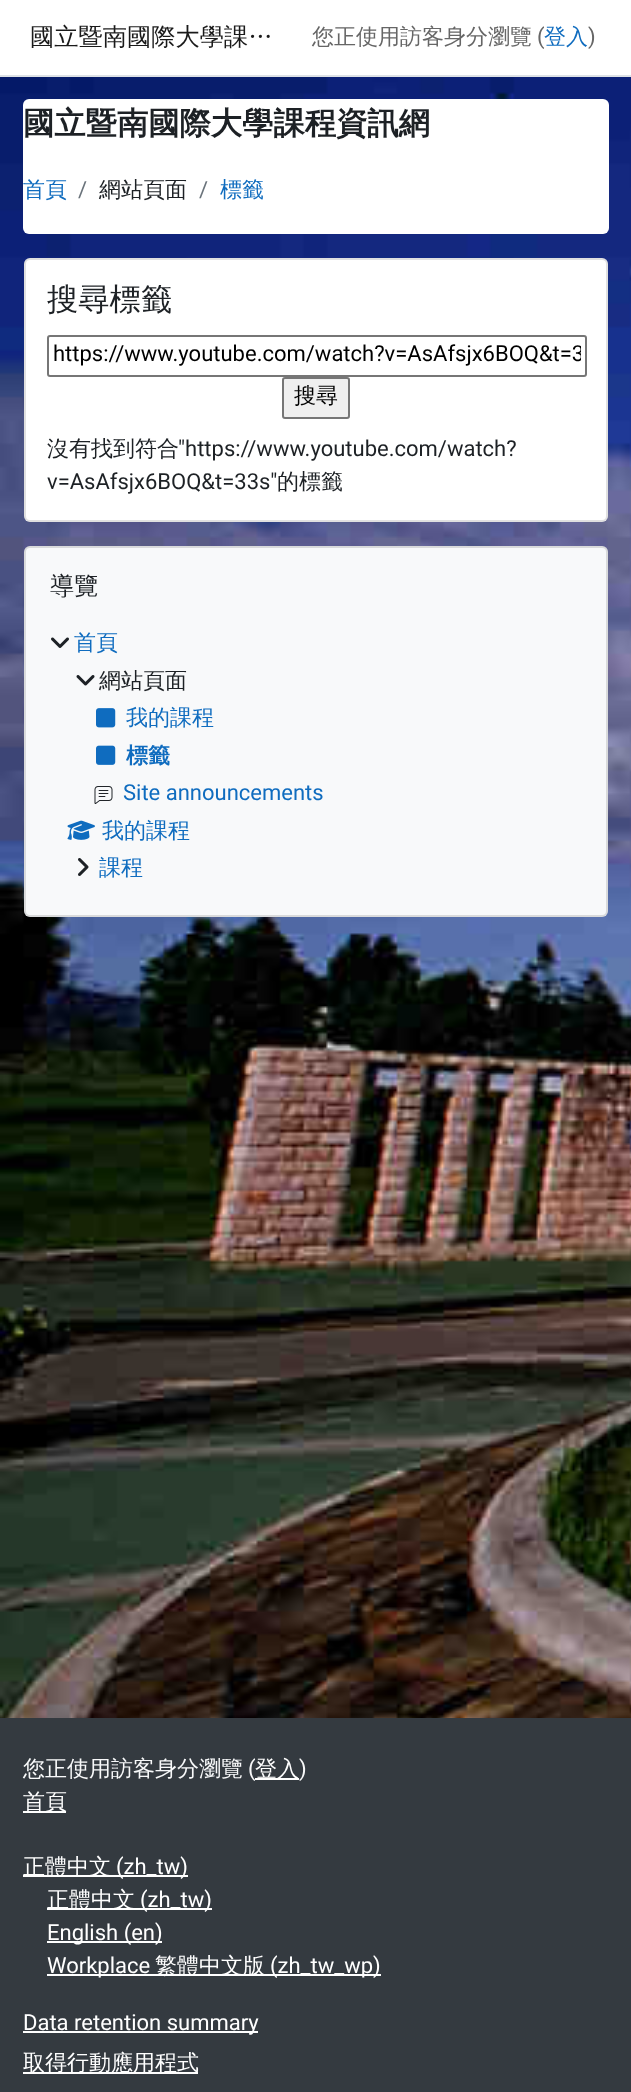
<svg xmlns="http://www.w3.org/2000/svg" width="631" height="2092">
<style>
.a{font:500 24.25px WenQuanYi Zen Hei;fill:#1a1a1a}
.b{font:500 22px WenQuanYi Zen Hei;fill:#666}
.c{font:22px Roboto;fill:#666}
.d{font:500 22px WenQuanYi Zen Hei;fill:#0f6cbf}
.e{font:bold 31.3px WenQuanYi Zen Hei;fill:#1d2125}
.f{font:22px Roboto;fill:#6a737b}
.g{font:500 22px WenQuanYi Zen Hei;fill:#1d2125}
.h{font:500 31.3px WenQuanYi Zen Hei;fill:#1d2125}
.i{font:22px Roboto;fill:#000}
.j{font:500 22px WenQuanYi Zen Hei;fill:#000}
.k{font:22px Roboto;fill:#1d2125}
.l{font:500 24.25px WenQuanYi Zen Hei;fill:#1d2125}
.m{font:bold 22px WenQuanYi Zen Hei;fill:#0f6cbf}
.n{font:22px Roboto;fill:#0f6cbf}
.o{font:500 22px WenQuanYi Zen Hei;fill:#f8f9fa}
.p{font:22px Roboto;fill:#f8f9fa}
.q{font:500 22px WenQuanYi Zen Hei;fill:#fff}
.r{font:22px Roboto;fill:#fff}
</style>
<defs>
<clipPath id="clip1"><path d="M53 339h528v33H53z"/></clipPath>
</defs>
<rect width="100%" height="100%" fill="#fff"/>
<image href="1.png" x="0" y="77" width="631" height="1641"/>
<path fill="#dee2e6" d="M0 75h631v2H0z"/>
<rect fill="#fff" x="23" y="99" width="586" height="135" rx="6"/>
<rect fill="#fff" x="24" y="258" width="584" height="264" rx="6"/>
<rect fill="none" stroke="#0000001f" stroke-width="2" x="25" y="259" width="582" height="262" rx="5"/>
<rect fill="none" stroke="#767676" stroke-width="2" x="48" y="336" width="538" height="40" rx="2"/>
<rect fill="#efefef" stroke="#767676" stroke-width="2" x="283" y="378" width="66" height="40" rx="2"/>
<rect fill="#f8f9fa" x="24" y="546" width="584" height="371" rx="6"/>
<rect fill="none" stroke="#0000001f" stroke-width="2" x="25" y="547" width="582" height="369" rx="5"/>
<image href="2.png" x="51" y="637" width="18" height="11"/>
<image href="3.png" x="76" y="675" width="19" height="11"/>
<image href="4.png" x="96" y="708" width="20" height="20"/>
<image href="5.png" x="96" y="745" width="20" height="20"/>
<image href="6.png" x="94" y="786" width="19" height="18"/>
<image href="7.png" x="67" y="820" width="28" height="20"/>
<image href="8.png" x="78" y="858" width="11" height="18"/>
<path fill="#343a40" d="M0 1718h631v374H0z"/>
<path fill="#fff" d="M255 1778h44v2H255z"/>
<path fill="#fff" d="M23 1811h43v2H23z"/>
<path fill="#fff" d="M23 1875h165v2H23z"/>
<path fill="#fff" d="M47 1908h165v2H47z"/>
<path fill="#fff" d="M47 1941h115v2H47z"/>
<path fill="#fff" d="M47 1974h334v2H47z"/>
<path fill="#fff" d="M23 2031h235v2H23z"/>
<path fill="#fff" d="M23 2072h175v2H23z"/>
<text class="a" x="30" y="45">國立暨南國際大學課…</text>
<text class="b" x="312" y="44">您正使用訪客身分瀏覽</text>
<text class="c" x="537" y="44">(</text>
<text class="d" x="544" y="44">登入</text>
<text class="c" x="588" y="44">)</text>
<text class="e" x="23" y="134">國立暨南國際大學課程資訊網</text>
<text class="d" x="23" y="197">首頁</text>
<text class="f" x="78" y="197">/</text>
<text class="g" x="99" y="197">網站頁面</text>
<text class="f" x="199" y="197">/</text>
<text class="d" x="220" y="197">標籤</text>
<text class="h" x="47" y="310">搜尋標籤</text>
<g clip-path="url(#clip1)">
<text class="i" x="53" y="361">https://www.youtube.com/watch?v=AsAfsjx6BOQ&amp;t=3</text>
</g>
<text class="j" x="294" y="403">搜尋</text>
<text class="g" x="47" y="456">沒有找到符合</text>
<text class="k" x="178" y="456">"https://www.youtube.com/watch?</text>
<text class="k" x="47" y="489">v=AsAfsjx6BOQ&amp;t=33s"</text>
<text class="g" x="277" y="489">的標籤</text>
<text class="l" x="50" y="594">導覽</text>
<text class="d" x="74" y="650">首頁</text>
<text class="g" x="99" y="688">網站頁面</text>
<text class="d" x="126" y="725">我的課程</text>
<text class="m" x="126" y="763">標籤</text>
<text class="n" x="123" y="800">Site announcements</text>
<text class="d" x="102" y="838">我的課程</text>
<text class="d" x="99" y="875">課程</text>
<text class="o" x="23" y="1776">您正使用訪客身分瀏覽</text>
<text class="p" x="248" y="1776">(</text>
<text class="q" x="255" y="1776">登入</text>
<text class="p" x="299" y="1776">)</text>
<text class="q" x="23" y="1809">首頁</text>
<text class="q" x="23" y="1874">正體中文</text>
<text class="r" x="116" y="1874">(zh_tw)</text>
<text class="q" x="47" y="1907">正體中文</text>
<text class="r" x="140" y="1907">(zh_tw)</text>
<text class="r" x="47" y="1940">English (en)</text>
<text class="r" x="47" y="1973">Workplace</text>
<text class="q" x="155" y="1973">繁體中文版</text>
<text class="r" x="270" y="1973">(zh_tw_wp)</text>
<text class="r" x="23" y="2030">Data retention summary</text>
<text class="q" x="23" y="2070">取得行動應用程式</text>
</svg>
